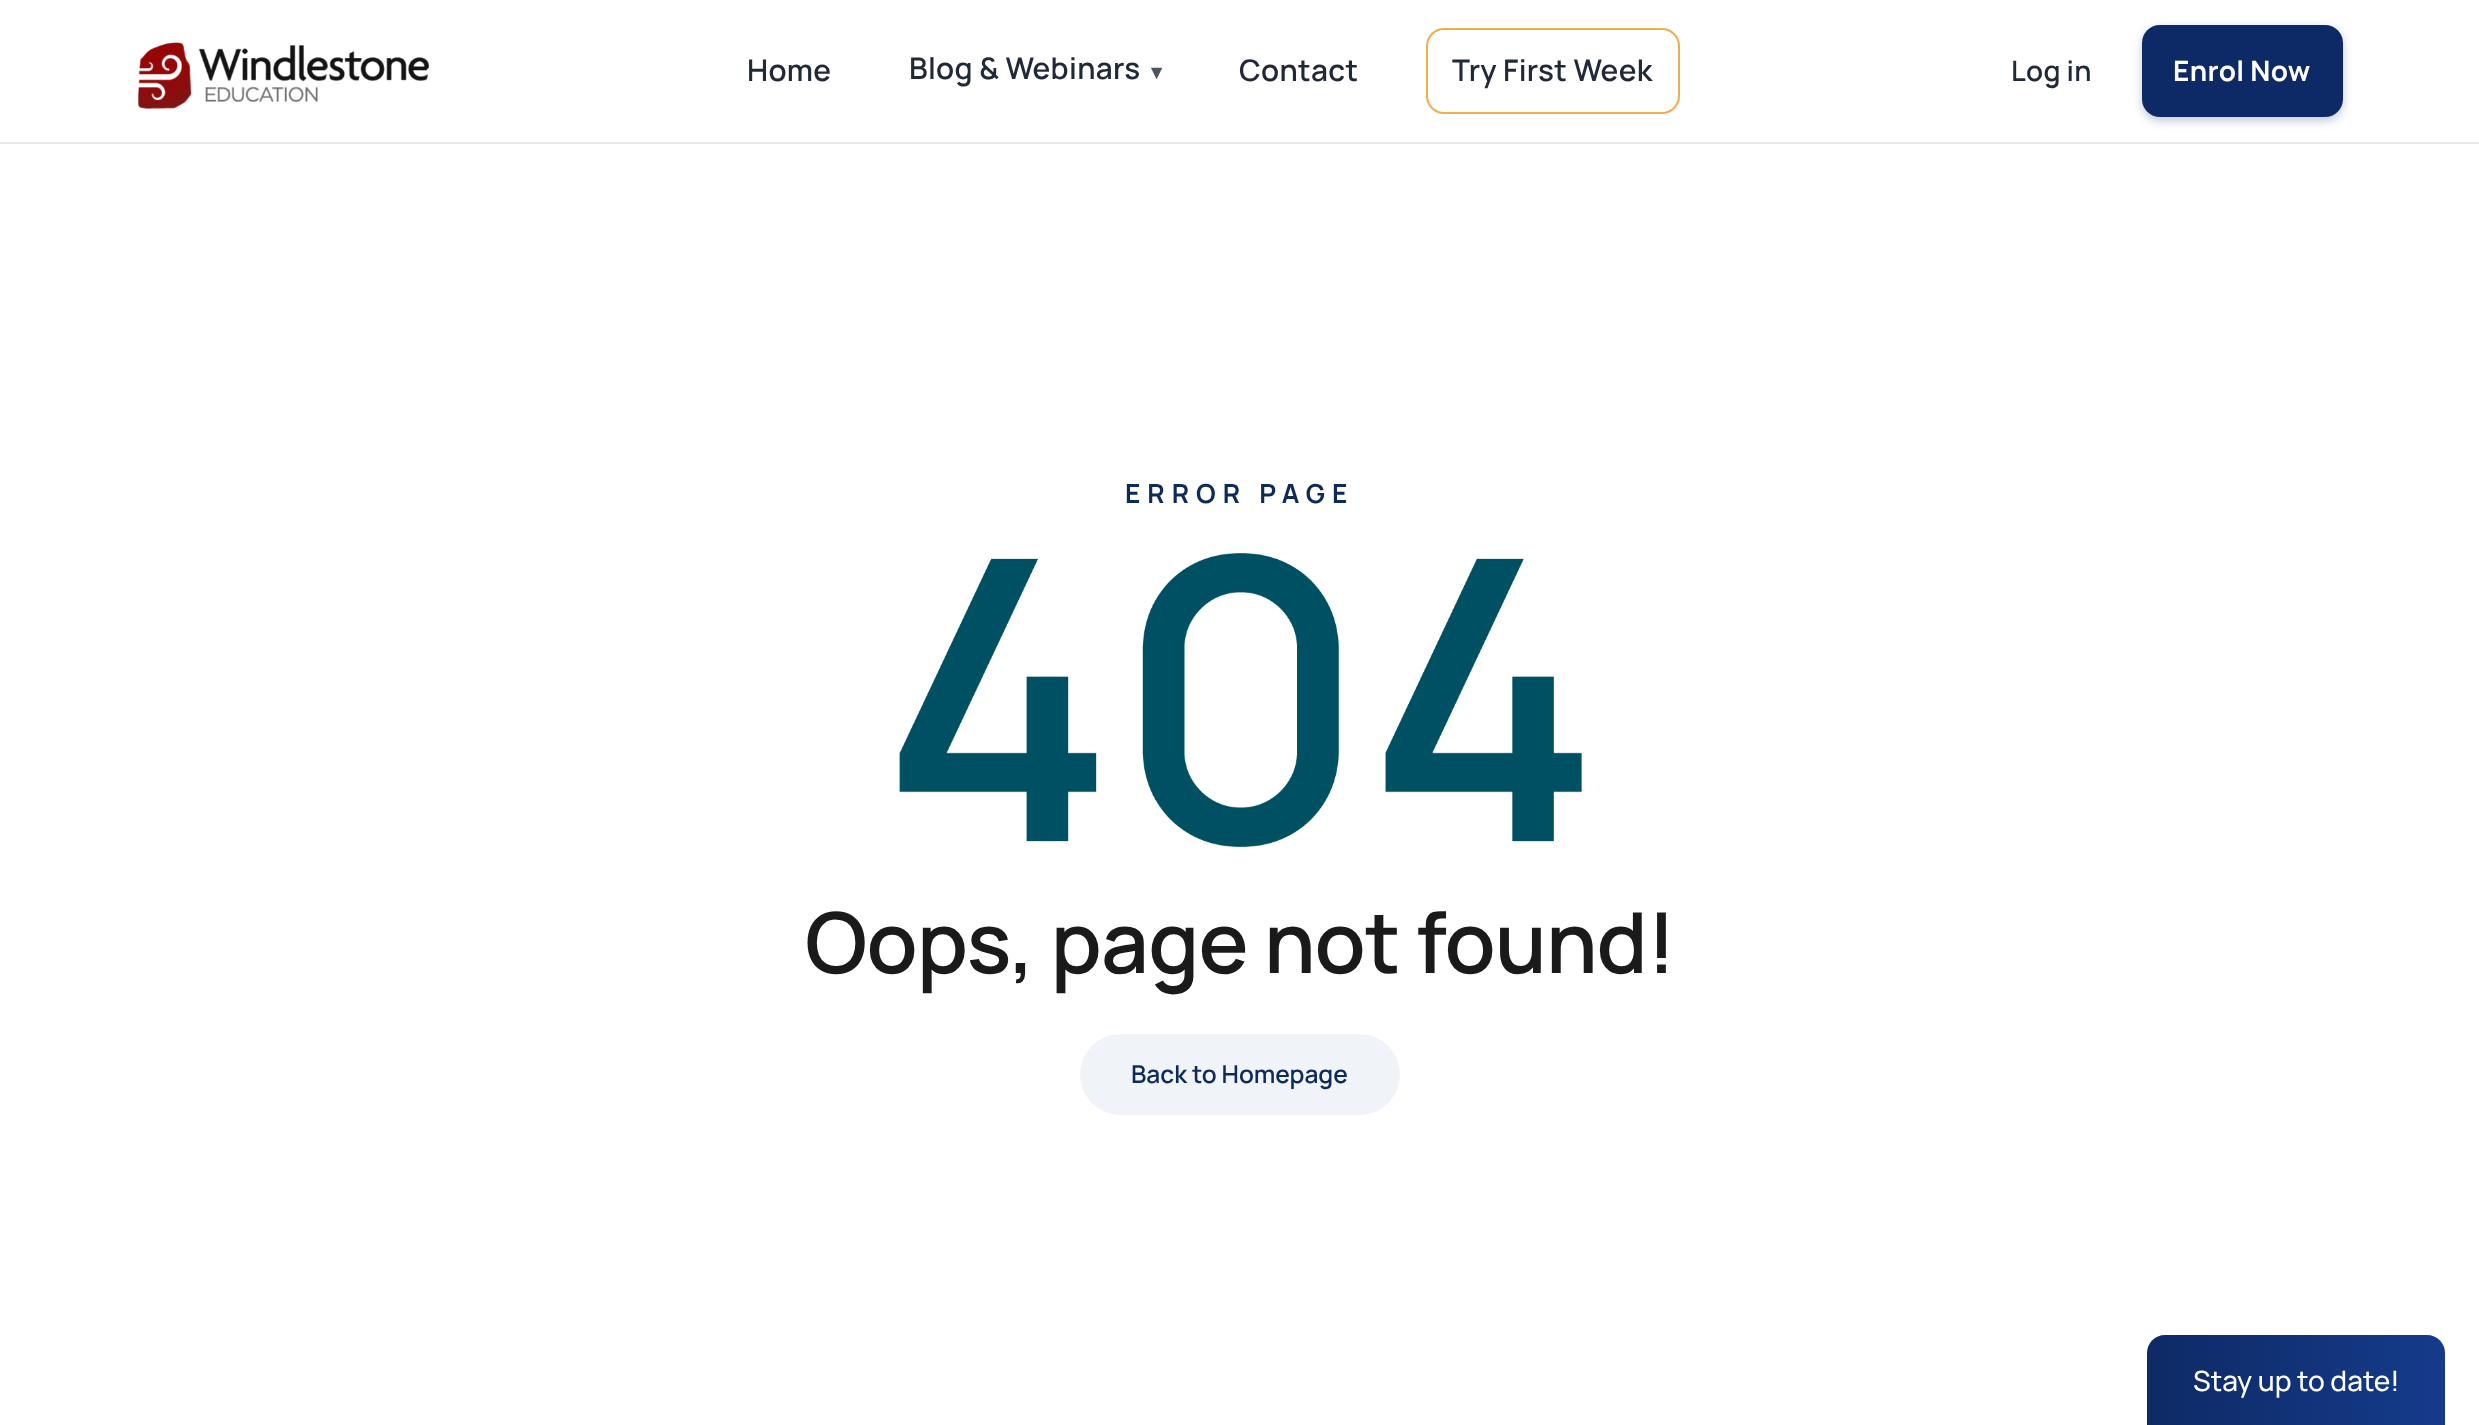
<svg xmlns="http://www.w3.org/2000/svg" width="2479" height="1425">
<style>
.a{font:600 29.75px Manrope;letter-spacing:0.3px;fill:#1f2937}
.b{font:bold 21px DejaVu Sans;letter-spacing:0.3px;fill:#4c545f}
.c{font:600 28px Manrope;letter-spacing:0.3px;fill:#1f2937}
.d{font:bold 28px Manrope;letter-spacing:0.3px;fill:#fff}
.e{font:500 28px Manrope;fill:#fff}
.f{font:bold 26.25px Manrope;letter-spacing:7px;fill:#0e2a5a}
.g{font:600 84px Manrope;letter-spacing:-0.7px;fill:#1a1a1a}
.h{font:600 24.5px Manrope;fill:#0e2a5a}
</style>
<defs>
<linearGradient id="g1" gradientUnits="userSpaceOnUse" x1="2147" y1="1381" x2="2445" y2="1381"><stop offset="0" stop-color="#0e2a66"/><stop offset="1" stop-color="#153b8a"/></linearGradient>
</defs>
<rect width="100%" height="100%" fill="#fff"/>
<path fill="#e5e7eb" d="M0 142h2479v2H0z"/>
<image href="1.png" x="138" y="42" width="291" height="67"/>
<rect fill="none" stroke="#f0ad4e" stroke-width="2" x="1427" y="29" width="252" height="84" rx="17"/>
<rect fill="#0e2a6640" filter="blur(5px)" x="2142" y="28" width="201" height="93" rx="18"/>
<rect fill="#0e2a66" x="2142" y="25" width="201" height="92" rx="18"/>
<path fill="url(#g1)" d="M2165 1335h262c10 0 18 8 18 18v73h-298v-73c0-10 8-18 18-18z"/>
<image href="2.png" x="899" y="553" width="683" height="294"/>
<rect fill="#f0f4f8" x="1080" y="1034" width="320" height="81" rx="40.5"/>
<text class="a" x="747" y="81">Home</text>
<text class="a" x="909" y="79">Blog &amp; Webinars</text>
<text class="b" x="1151" y="79">▾</text>
<text class="a" x="1239" y="81">Contact</text>
<text class="a" x="1452" y="81">Try First Week</text>
<text class="c" x="2011" y="81">Log in</text>
<text class="d" x="2173" y="81">Enrol Now</text>
<text class="e" x="2193" y="1391">Stay up to date!</text>
<text class="f" x="1125" y="503">ERROR PAGE</text>
<text class="g" x="805" y="973">Oops, page not found!</text>
<text class="h" x="1131" y="1083">Back to Homepage</text>
</svg>
